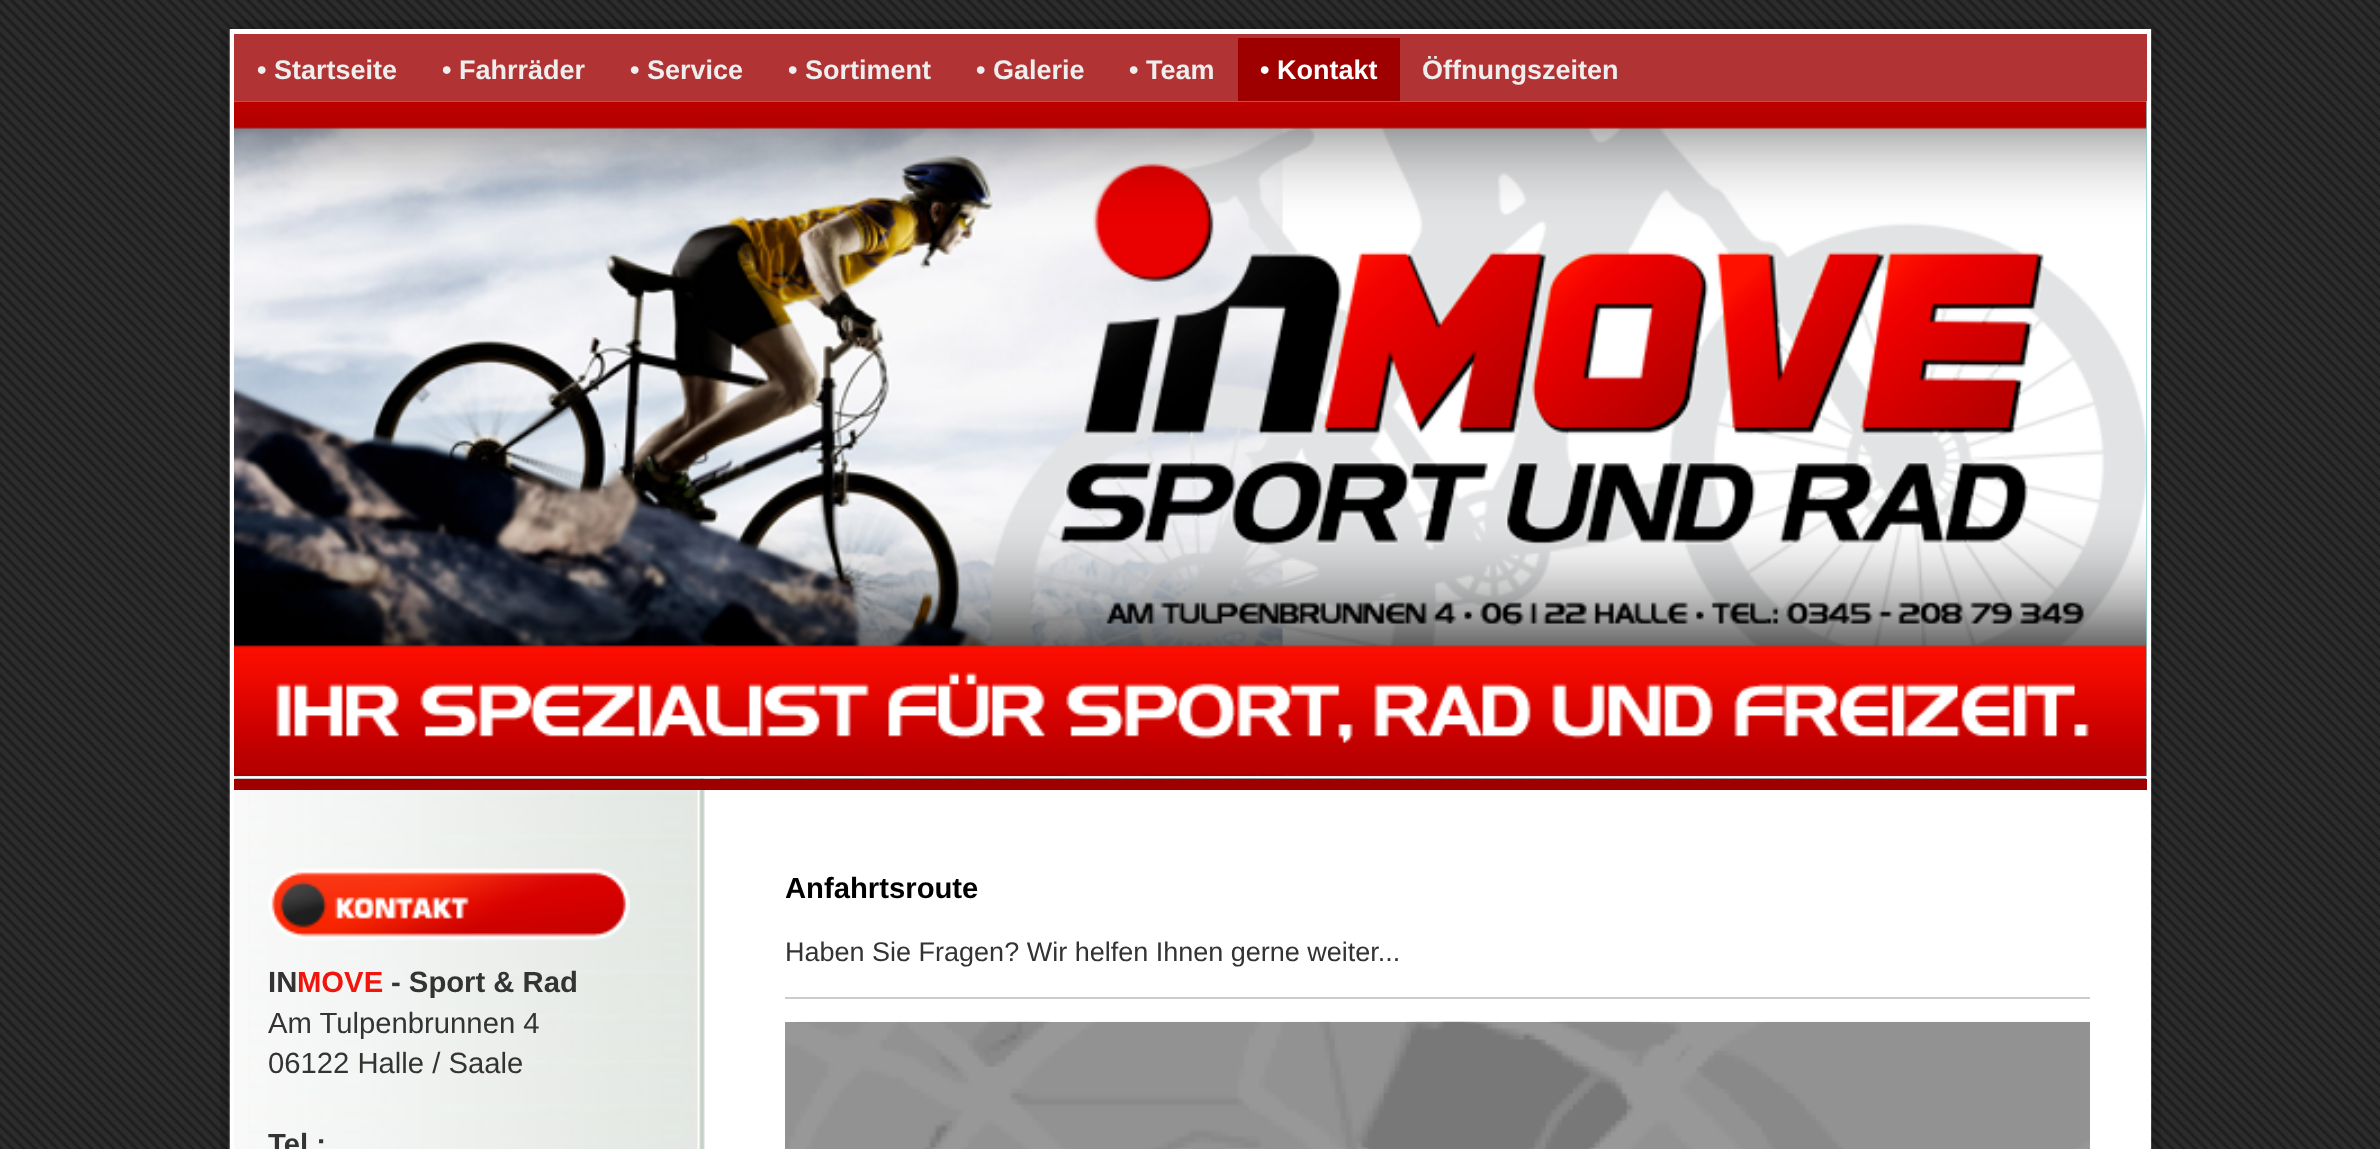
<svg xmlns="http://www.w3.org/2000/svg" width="2380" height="1149">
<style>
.a{font:bold 27px Liberation Sans;fill:#eee}
.b{font:bold 27px Liberation Sans;fill:#fff}
.c{font:bold 29.25px Liberation Sans;fill:#000}
.d{font:27px Liberation Sans;fill:#333}
.e{font:bold 29.25px Liberation Sans;fill:#333}
.f{font:bold 29.25px Liberation Sans;fill:#f1160d}
.g{font:29.25px Liberation Sans;fill:#333}
</style>
<rect width="100%" height="100%" fill="#fff"/>
<image href="1.png" x="0" y="0" width="2380" height="1149"/>
<image href="2.png" x="234" y="20" width="1915" height="9"/>
<image href="3.png" x="220" y="29" width="1941" height="1120"/>
<path fill="none" stroke="#fff" stroke-width="5" d="M232.5 31.5h1916v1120H232.5z"/>
<path fill="#9e0000" d="M234 34h1913v67H234z"/>
<path fill="#ffffff33" d="M234 34h1913v67H234z"/>
<path fill="#9e0000" d="M1238 38h162v63H1238z"/>
<path fill="#fff" d="M234 776h1913v2H234z"/>
<path fill="#89cece" d="M234 101h1913v675H234z"/>
<image href="4.png" x="234" y="101" width="1913" height="676"/>
<path fill="#fff" d="M720 790h1426v359H720z"/>
<image href="5.png" x="234" y="778" width="486" height="371"/>
<path fill="#9e0000" d="M234 779h1913v11H234z"/>
<path fill="#ccc" d="M785 997h1305v2H785z"/>
<image href="6.png" x="785" y="1021" width="1305" height="128"/>
<path fill="#00000066" d="M785 1022h1305v127H785z"/>
<image href="7.png" x="268" y="868" width="362" height="73"/>
<text class="a" x="257" y="79">• Startseite</text>
<text class="a" x="442" y="79">• Fahrräder</text>
<text class="a" x="630" y="79">• Service</text>
<text class="a" x="788" y="79">• Sortiment</text>
<text class="a" x="976" y="79">• Galerie</text>
<text class="a" x="1129" y="79">• Team</text>
<text class="b" x="1260" y="79">• Kontakt</text>
<text class="a" x="1422" y="79">Öffnungszeiten</text>
<text class="c" x="785" y="898">Anfahrtsroute</text>
<text class="d" x="785" y="961">Haben Sie Fragen? Wir helfen Ihnen gerne weiter...</text>
<text class="e" x="268" y="992">IN</text>
<text class="f" x="297" y="992">MOVE</text>
<text class="e" x="391" y="992">- Sport &amp; Rad</text>
<text class="g" x="268" y="1033">Am Tulpenbrunnen 4</text>
<text class="g" x="268" y="1073">06122 Halle / Saale</text>
<text class="e" x="268" y="1154">Tel.:</text>
</svg>
